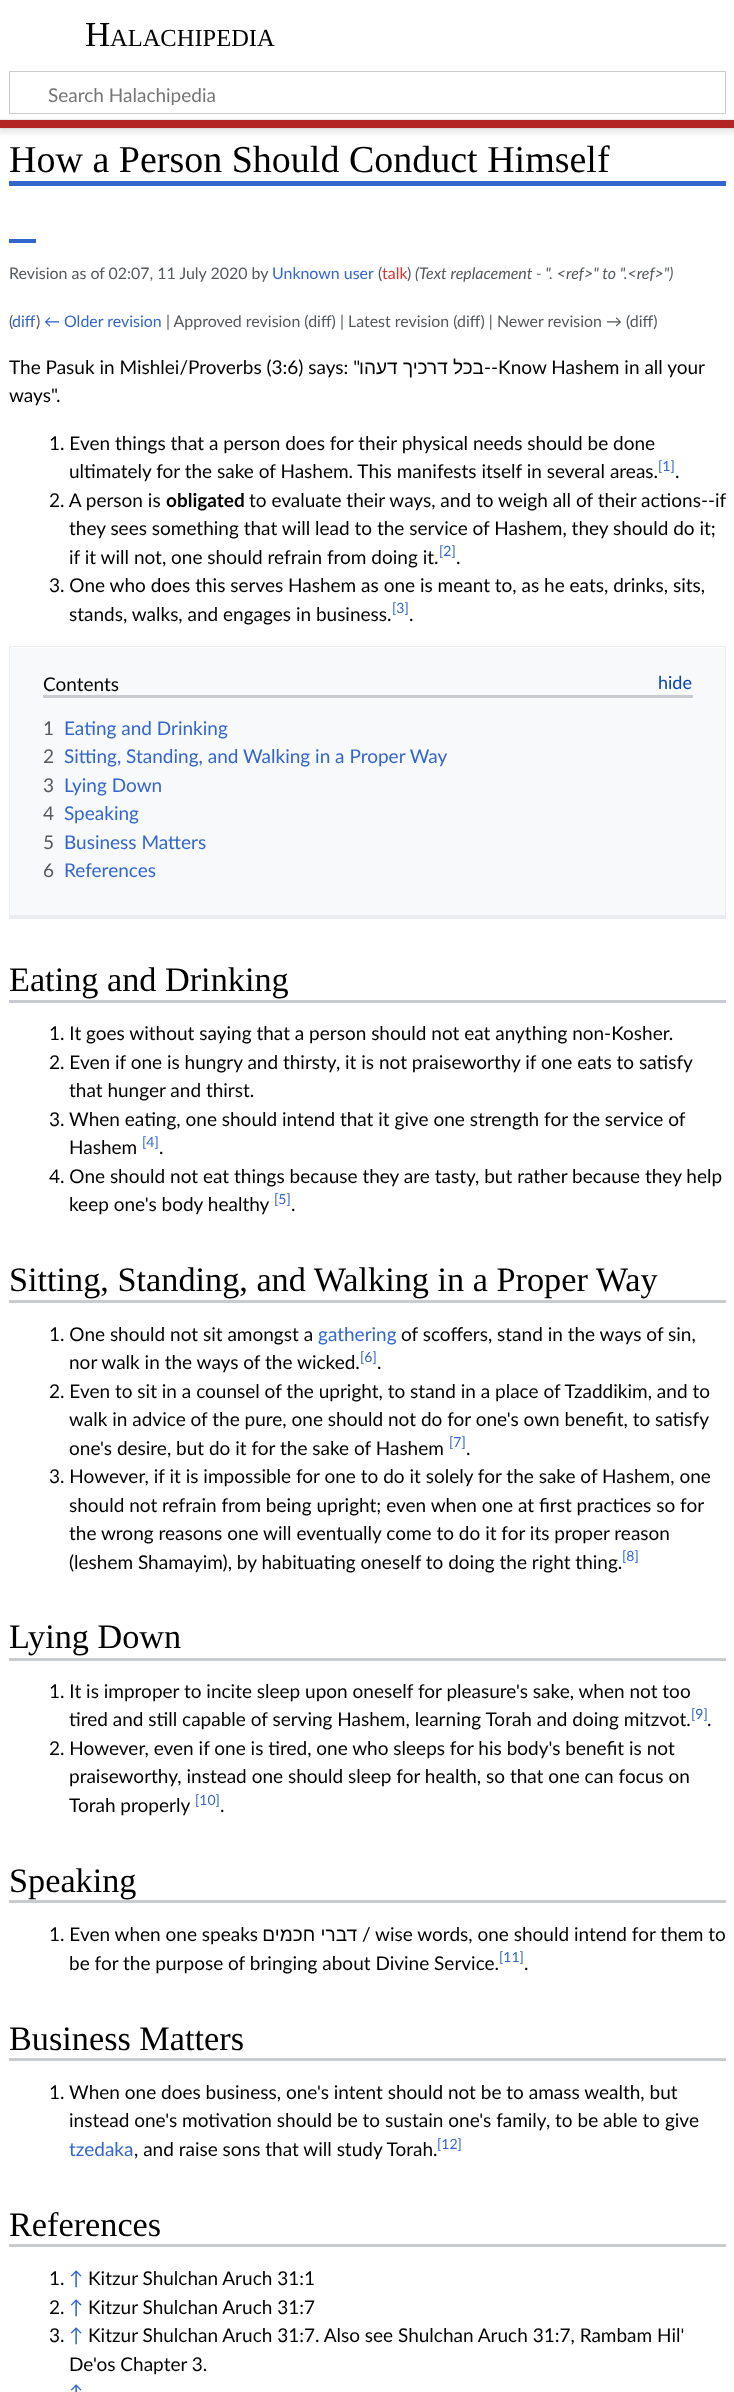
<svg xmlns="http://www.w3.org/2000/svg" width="734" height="2392">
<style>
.a{font:35px Liberation Serif;fill:#000}
.b{font:24.5px Liberation Serif;fill:#000}
.c{font:19px Lato;fill:#757575}
.d{font:38px Liberation Serif;fill:#000}
.e{font:15.95px Lato;fill:#54595d}
.f{font:15.95px Lato;fill:#36c}
.g{font:15.95px Lato;fill:#d33}
.h{font:italic 15.95px Lato;fill:#54595d}
.i{font:19px Lato;fill:#000}
.j{font:19px Liberation Sans;direction:rtl;fill:#000}
.k{font:14px Lato;fill:#36c}
.l{font:bold 19px Lato;fill:#000}
.m{font:18px Lato;fill:#0645ad}
.n{font:19px Lato;fill:#54595d}
.o{font:19px Lato;fill:#36c}
.p{font:34.25px Liberation Serif;fill:#000}
</style>
<defs>
<clipPath id="clip1"><path d="M48 83h587v22H48z"/></clipPath>
</defs>
<rect width="100%" height="100%" fill="#fff"/>
<path fill="none" stroke="#c8ccd1" d="M9.5 71.5h716v42H9.5z"/>
<path fill="#00000033" filter="blur(1px)" d="M0 120h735v8H0z"/>
<path fill="#00000012" filter="blur(2px)" d="M-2 121h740v13H-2z"/>
<path fill="#b32424" d="M0 120h734v8H0z"/>
<path fill="#36c" d="M9 181h717v5H9z"/>
<path fill="#36c" d="M9 239h27v4H9z"/>
<path fill="#f8f9fa" d="M10 648h715v267H10z"/>
<path fill="#eaecf0" d="M9 646h717v1H9z"/>
<path fill="#eaecf0" d="M725 646h1v273H725z"/>
<path fill="#eaecf0" d="M9 915h717v4H9z"/>
<path fill="#eaecf0" d="M9 646h1v273H9z"/>
<path fill="#c8ccd1" d="M43 695h650v3H43z"/>
<path fill="#c8ccd1" d="M9 1000h717v3H9z"/>
<path fill="#c8ccd1" d="M9 1300h717v3H9z"/>
<path fill="#c8ccd1" d="M9 1658h717v3H9z"/>
<path fill="#c8ccd1" d="M9 1900h717v3H9z"/>
<path fill="#c8ccd1" d="M9 2058h717v3H9z"/>
<path fill="#c8ccd1" d="M9 2244h717v3H9z"/>
<text class="a" x="85" y="46">H</text>
<text class="b" x="110" y="46">ALACHIPEDIA</text>
<g clip-path="url(#clip1)">
<text class="c" x="48" y="102">Search Halachipedia</text>
</g>
<text class="d" x="9" y="172">How a Person Should Conduct Himself</text>
<text class="e" x="9" y="279">Revision as of 02:07, 11 July 2020 by</text>
<text class="f" x="272" y="279">Unknown user</text>
<text class="e" x="378" y="279">(</text>
<text class="g" x="382" y="279">talk</text>
<text class="e" x="407" y="279">)</text>
<text class="h" x="415" y="279">(Text replacement - ". &lt;ref&gt;" to ".&lt;ref&gt;")</text>
<text class="e" x="9" y="327">(</text>
<text class="f" x="12" y="327">diff</text>
<text class="e" x="36" y="327">)</text>
<text class="f" x="44" y="327">← Older revision</text>
<text class="e" x="166" y="327">| Approved revision (diff) | Latest revision (diff) | Newer revision → (diff)</text>
<text class="i" x="9" y="374">The Pasuk in Mishlei/Proverbs (3:6) says: "</text>
<text class="j" x="484" y="374">בכל דרכיך דעהו</text>
<text class="i" x="484" y="374">--Know Hashem in all your</text>
<text class="i" x="9" y="402">ways".</text>
<text class="i" x="49" y="450">1. Even things that a person does for their physical needs should be done</text>
<text class="i" x="69" y="478">ultimately for the sake of Hashem. This manifests itself in several areas.</text>
<text class="k" x="658" y="471">[1]</text>
<text class="i" x="675" y="478">.</text>
<text class="i" x="49" y="507">2. A person is</text>
<text class="l" x="166" y="507">obligated</text>
<text class="i" x="249" y="507">to evaluate their ways, and to weigh all of their actions--if</text>
<text class="i" x="69" y="535">they sees something that will lead to the service of Hashem, they should do it;</text>
<text class="i" x="69" y="564">if it will not, one should refrain from doing it.</text>
<text class="k" x="439" y="556">[2]</text>
<text class="i" x="456" y="564">.</text>
<text class="i" x="49" y="592">3. One who does this serves Hashem as one is meant to, as he eats, drinks, sits,</text>
<text class="i" x="69" y="621">stands, walks, and engages in business.</text>
<text class="k" x="392" y="613">[3]</text>
<text class="i" x="409" y="621">.</text>
<text class="i" x="43" y="691">Contents</text>
<text class="m" x="658" y="689">hide</text>
<text class="n" x="43" y="735">1</text>
<text class="o" x="64" y="735">Eating and Drinking</text>
<text class="n" x="43" y="763">2</text>
<text class="o" x="64" y="763">Sitting, Standing, and Walking in a Proper Way</text>
<text class="n" x="43" y="792">3</text>
<text class="o" x="64" y="792">Lying Down</text>
<text class="n" x="43" y="820">4</text>
<text class="o" x="64" y="820">Speaking</text>
<text class="n" x="43" y="849">5</text>
<text class="o" x="64" y="849">Business Matters</text>
<text class="n" x="43" y="877">6</text>
<text class="o" x="64" y="877">References</text>
<text class="p" x="9" y="991">Eating and Drinking</text>
<text class="i" x="49" y="1040">1. It goes without saying that a person should not eat anything non-Kosher.</text>
<text class="i" x="49" y="1069">2. Even if one is hungry and thirsty, it is not praiseworthy if one eats to satisfy</text>
<text class="i" x="69" y="1097">that hunger and thirst.</text>
<text class="i" x="49" y="1126">3. When eating, one should intend that it give one strength for the service of</text>
<text class="i" x="69" y="1154">Hashem</text>
<text class="k" x="142" y="1147">[4]</text>
<text class="i" x="159" y="1154">.</text>
<text class="i" x="49" y="1183">4. One should not eat things because they are tasty, but rather because they help</text>
<text class="i" x="69" y="1211">keep one's body healthy</text>
<text class="k" x="274" y="1204">[5]</text>
<text class="i" x="291" y="1211">.</text>
<text class="p" x="9" y="1291">Sitting, Standing, and Walking in a Proper Way</text>
<text class="i" x="49" y="1341">1. One should not sit amongst a</text>
<text class="o" x="318" y="1341">gathering</text>
<text class="i" x="401" y="1341">of scoffers, stand in the ways of sin,</text>
<text class="i" x="69" y="1369">nor walk in the ways of the wicked.</text>
<text class="k" x="360" y="1362">[6]</text>
<text class="i" x="377" y="1369">.</text>
<text class="i" x="49" y="1398">2. Even to sit in a counsel of the upright, to stand in a place of Tzaddikim, and to</text>
<text class="i" x="69" y="1426">walk in advice of the pure, one should not do for one's own benefit, to satisfy</text>
<text class="i" x="69" y="1455">one's desire, but do it for the sake of Hashem</text>
<text class="k" x="449" y="1447">[7]</text>
<text class="i" x="466" y="1455">.</text>
<text class="i" x="49" y="1483">3. However, if it is impossible for one to do it solely for the sake of Hashem, one</text>
<text class="i" x="69" y="1512">should not refrain from being upright; even when one at first practices so for</text>
<text class="i" x="69" y="1540">the wrong reasons one will eventually come to do it for its proper reason</text>
<text class="i" x="69" y="1569">(leshem Shamayim), by habituating oneself to doing the right thing.</text>
<text class="k" x="622" y="1561">[8]</text>
<text class="p" x="9" y="1648">Lying Down</text>
<text class="i" x="49" y="1698">1. It is improper to incite sleep upon oneself for pleasure's sake, when not too</text>
<text class="i" x="69" y="1726">tired and still capable of serving Hashem, learning Torah and doing mitzvot.</text>
<text class="k" x="691" y="1719">[9]</text>
<text class="i" x="707" y="1726">.</text>
<text class="i" x="49" y="1755">2. However, even if one is tired, one who sleeps for his body's benefit is not</text>
<text class="i" x="69" y="1783">praiseworthy, instead one should sleep for health, so that one can focus on</text>
<text class="i" x="69" y="1812">Torah properly</text>
<text class="k" x="195" y="1805">[10]</text>
<text class="i" x="220" y="1812">.</text>
<text class="p" x="9" y="1892">Speaking</text>
<text class="i" x="49" y="1941">1. Even when one speaks</text>
<text class="j" x="357" y="1941">דברי חכמים</text>
<text class="i" x="362" y="1941">/ wise words, one should intend for them to</text>
<text class="i" x="69" y="1970">be for the purpose of bringing about Divine Service.</text>
<text class="k" x="499" y="1962">[11]</text>
<text class="i" x="524" y="1970">.</text>
<text class="p" x="9" y="2050">Business Matters</text>
<text class="i" x="49" y="2099">1. When one does business, one's intent should not be to amass wealth, but</text>
<text class="i" x="69" y="2127">instead one's motivation should be to sustain one's family, to be able to give</text>
<text class="o" x="69" y="2156">tzedaka</text>
<text class="i" x="134" y="2156">, and raise sons that will study Torah.</text>
<text class="k" x="437" y="2149">[12]</text>
<text class="p" x="9" y="2236">References</text>
<text class="i" x="49" y="2285">1.</text>
<text class="o" x="69" y="2285">↑</text>
<text class="i" x="88" y="2285">Kitzur Shulchan Aruch 31:1</text>
<text class="i" x="49" y="2314">2.</text>
<text class="o" x="69" y="2314">↑</text>
<text class="i" x="88" y="2314">Kitzur Shulchan Aruch 31:7</text>
<text class="i" x="49" y="2342">3.</text>
<text class="o" x="69" y="2342">↑</text>
<text class="i" x="88" y="2342">Kitzur Shulchan Aruch 31:7. Also see Shulchan Aruch 31:7, Rambam Hil'</text>
<text class="i" x="69" y="2371">De'os Chapter 3.</text>
<text class="o" x="69" y="2399">↑</text>
</svg>
